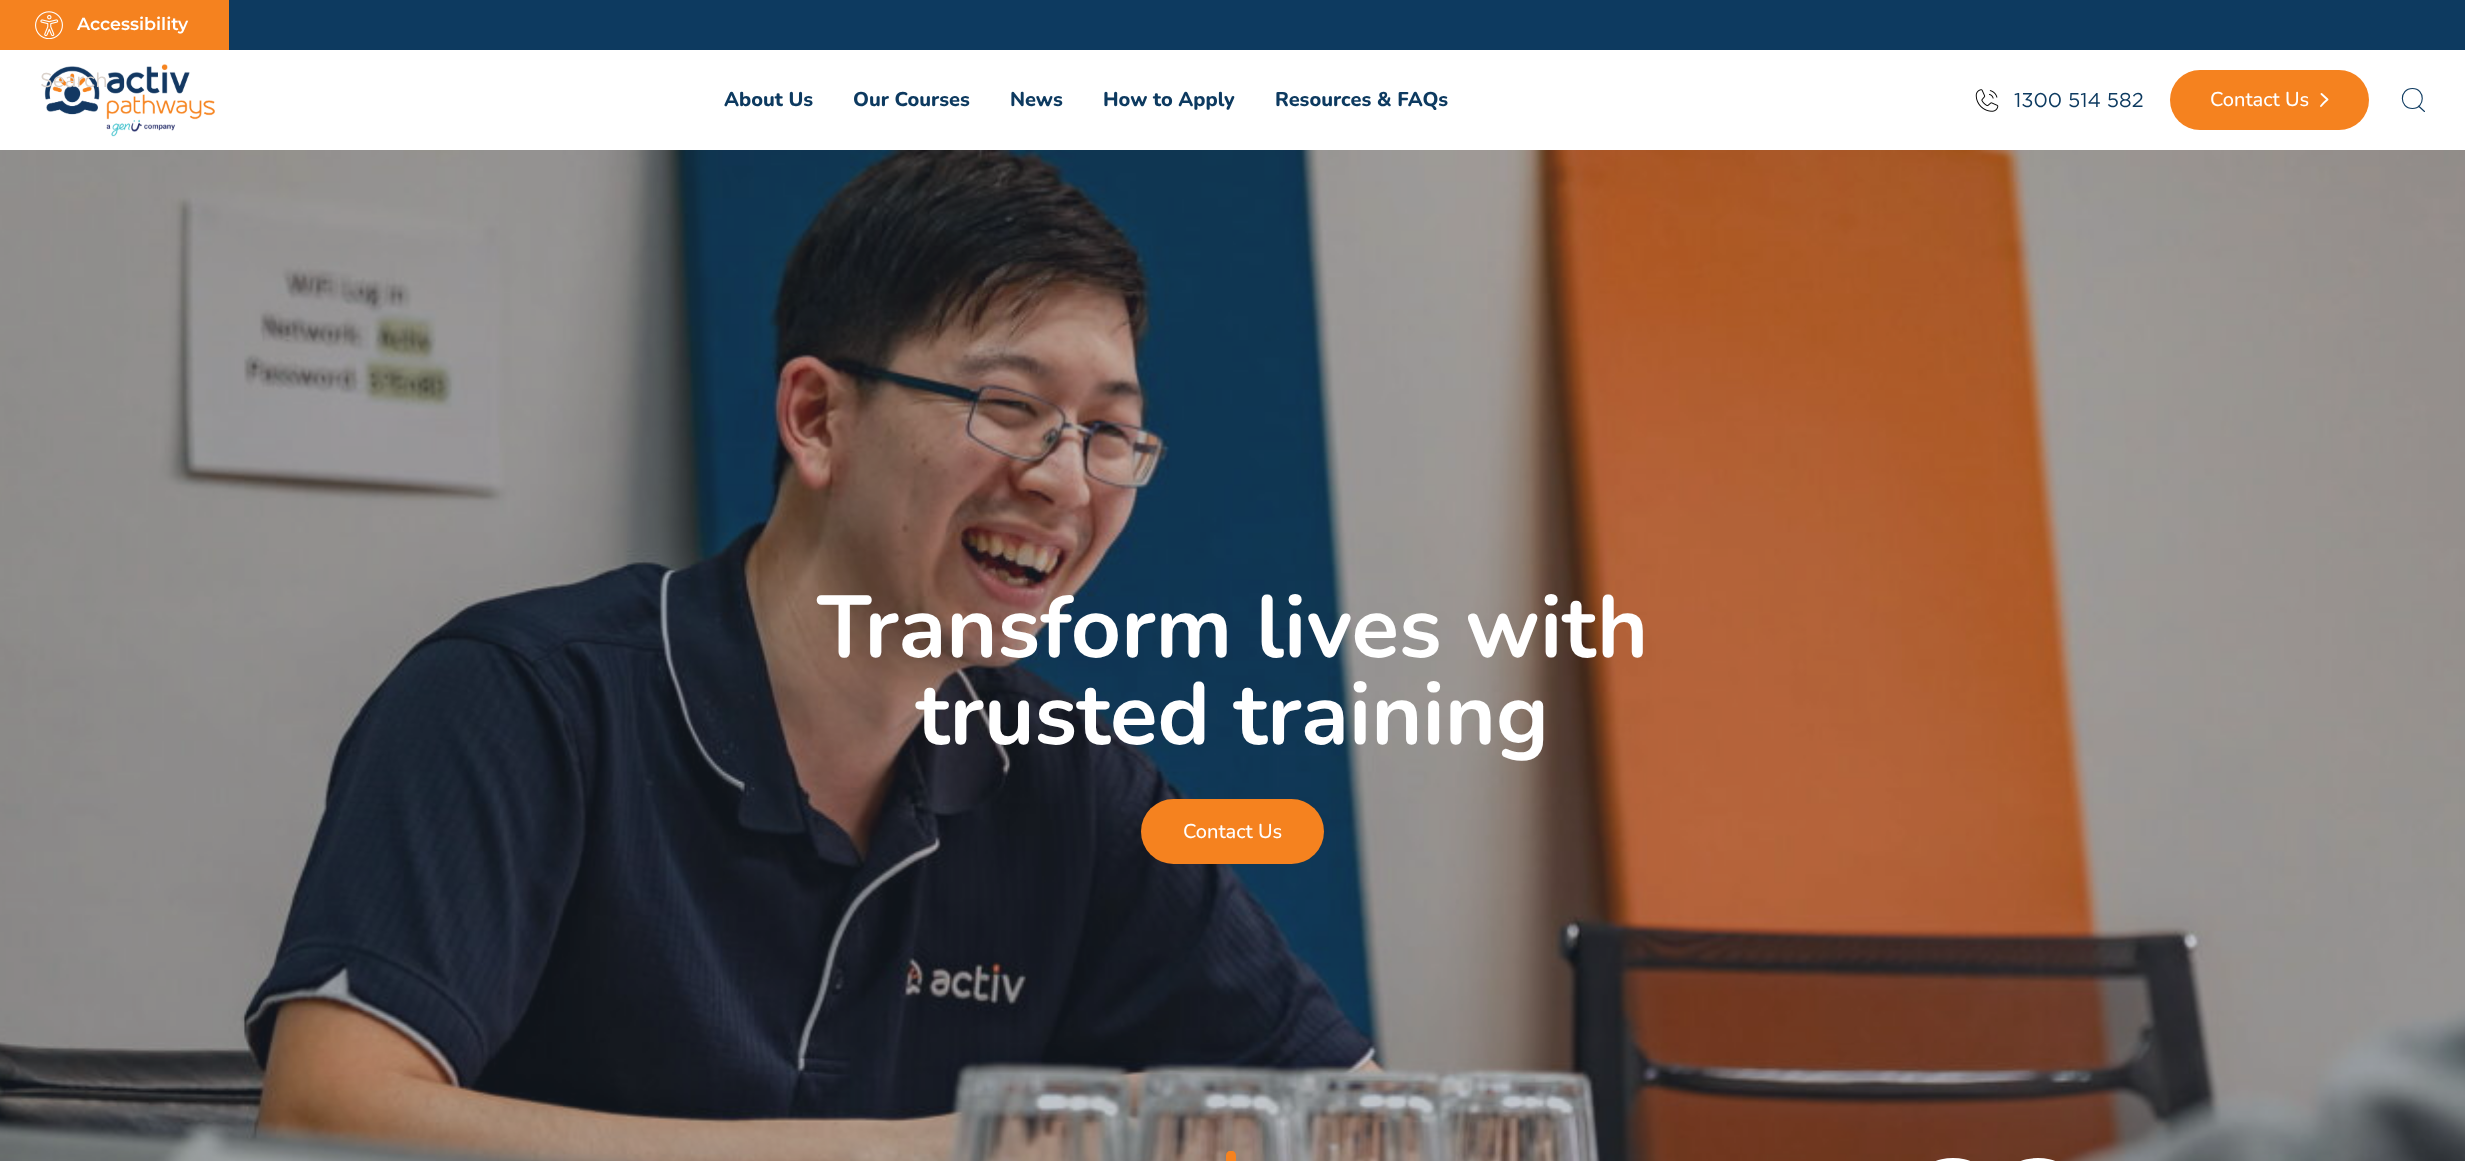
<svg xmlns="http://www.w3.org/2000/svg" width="2465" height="1161">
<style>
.a{font:600 17.5px Montserrat;fill:#fff}
.b{font:20px Gotham;fill:#dbd2cb}
.c{font:20px Gotham;fill:#0d3a60}
.d{font:500 20px Nunito;fill:#fff}
.e{font:800 20px Nunito;fill:#0d3a60}
.f{font:bold 87.5px Nunito;fill:#fff}
</style>
<defs>
<clipPath id="clip1"><path d="M1210 1151h45v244H1210z"/></clipPath>
</defs>
<rect width="100%" height="100%" fill="#fff"/>
<path fill="#0d3a60" d="M229 0h2236v50H229z"/>
<path fill="#f5821f" d="M0 0h229v50H0z"/>
<image href="1.png" x="35" y="11" width="28" height="28"/>
<image href="2.png" x="44" y="64" width="171" height="73"/>
<image href="3.png" x="1975" y="89" width="24" height="23"/>
<rect fill="#f5821f" x="2170" y="70" width="199" height="60" rx="30"/>
<path fill="none" stroke="#fff" stroke-width="1.9" stroke-linecap="round" stroke-linejoin="round" d="M2321.5 94l6 5.5c-2.5 2-4.5 4-6.5 6.5"/>
<path fill="none" stroke="#0d3a60" stroke-width="1.1" stroke-linecap="round" stroke-linejoin="round" d="M2412.5 108.5c13 0 13-20 0-20c-13.5 0-13.5 20 0 20zm12 3l-6-5.5"/>
<image href="4.png" x="0" y="150" width="2465" height="1011"/>
<rect fill="#f5821f" x="1141" y="799" width="183" height="65" rx="32.5"/>
<rect fill="#fff" x="1923" y="1158" width="60" height="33" rx="30"/>
<rect fill="#fff" x="2008" y="1158" width="60" height="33" rx="30"/>
<g clip-path="url(#clip1)">
<path fill="none" stroke="#f5821f" stroke-width="10" stroke-linecap="round" stroke-linejoin="round" d="M1231 1155.5v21.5m0 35c3 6 3.5 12.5 2 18.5m1 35v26.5m0 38.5v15m16 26l-15.5 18c-5.5-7.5-12.5-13.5-19.5-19"/>
</g>
<text class="a" x="77" y="30">Accessibility</text>
<text class="b" x="40" y="87">Search</text>
<text class="c" x="2014" y="107">1300 514 582</text>
<text class="d" x="2210" y="106">Contact Us</text>
<text class="e" x="724" y="106">About Us</text>
<text class="e" x="853" y="106">Our Courses</text>
<text class="e" x="1010" y="106">News</text>
<text class="e" x="1103" y="106">How to Apply</text>
<text class="e" x="1275" y="106">Resources &amp; FAQs</text>
<text class="f" x="817" y="657">Transform lives with</text>
<text class="f" x="916" y="744">trusted training</text>
<text class="d" x="1183" y="838">Contact Us</text>
</svg>
